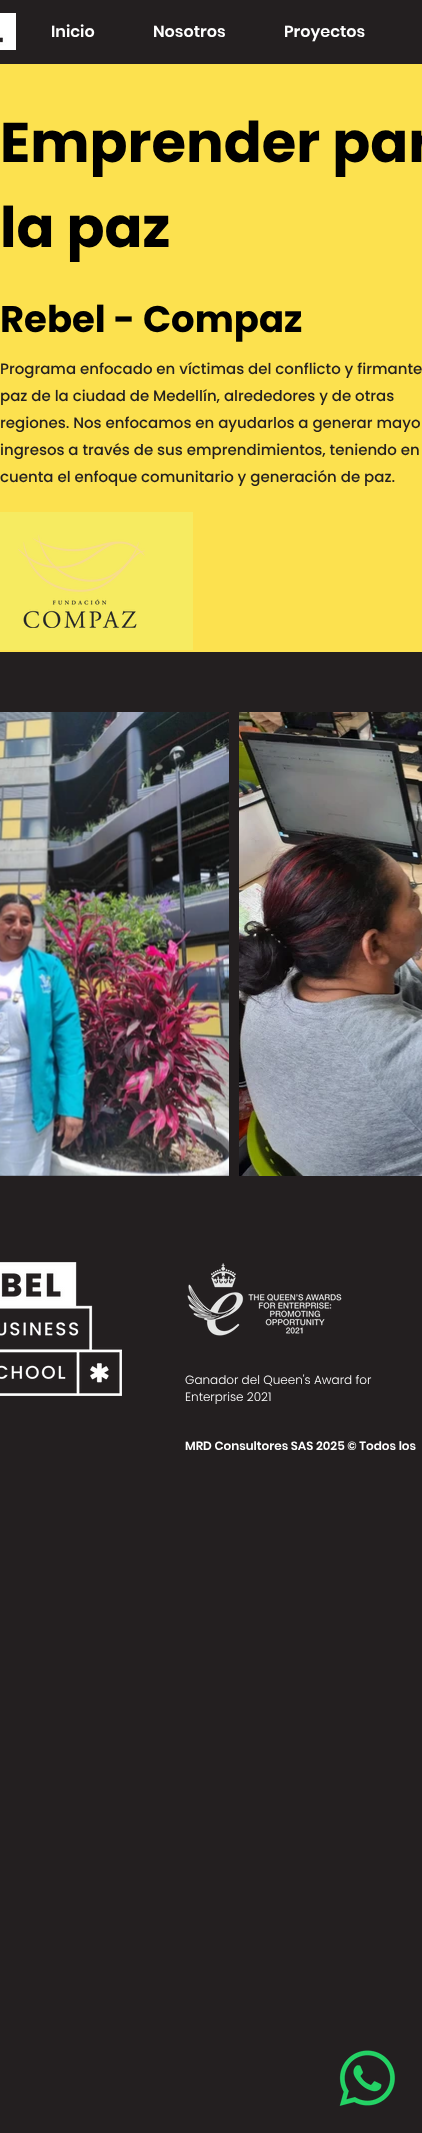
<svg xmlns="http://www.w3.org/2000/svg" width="422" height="2133">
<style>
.a{font:600 16px Poppins;fill:#fff}
.b{font:bold 56px Poppins;fill:#000}
.c{font:bold 37px Poppins;fill:#000}
.d{font:500 15px Poppins;fill:#231f20}
.e{font:300 12px Poppins;fill:#fff}
.f{font:600 12px Poppins;fill:#fff}
</style>
<rect width="100%" height="100%" fill="#231f20"/>
<image href="1.png" x="0" y="13" width="16" height="37"/>
<path fill="#fce14f" d="M0 64h422v588H0z"/>
<path fill="#f6eb61" d="M0 512h193v138H0z"/>
<image href="2.png" x="18" y="535" width="127" height="93"/>
<image href="3.png" x="0" y="712" width="229" height="464"/>
<image href="4.png" x="239" y="712" width="183" height="464"/>
<image href="5.png" x="0" y="1262" width="122" height="134"/>
<image href="6.png" x="187" y="1263" width="155" height="73"/>
<image href="7.png" x="339" y="2050" width="56" height="56"/>
<text class="a" x="51" y="37">Inicio</text>
<text class="a" x="153" y="37">Nosotros</text>
<text class="a" x="284" y="37">Proyectos</text>
<text class="b" x="0" y="162">Emprender par</text>
<text class="b" x="0" y="247">la paz</text>
<text class="c" x="0" y="332">Rebel - Compaz</text>
<text class="d" x="0" y="374">Programa enfocado en víctimas del conflicto y firmante</text>
<text class="d" x="0" y="401">paz de la ciudad de Medellín, alrededores y de otras</text>
<text class="d" x="0" y="428">regiones. Nos enfocamos en ayudarlos a generar mayo</text>
<text class="d" x="0" y="455">ingresos a través de sus emprendimientos, teniendo en</text>
<text class="d" x="0" y="482">cuenta el enfoque comunitario y generación de paz.</text>
<text class="e" x="185" y="1384">Ganador del Queen's Award for</text>
<text class="e" x="185" y="1401">Enterprise 2021</text>
<text class="f" x="185" y="1450">MRD Consultores SAS 2025 © Todos los</text>
</svg>
